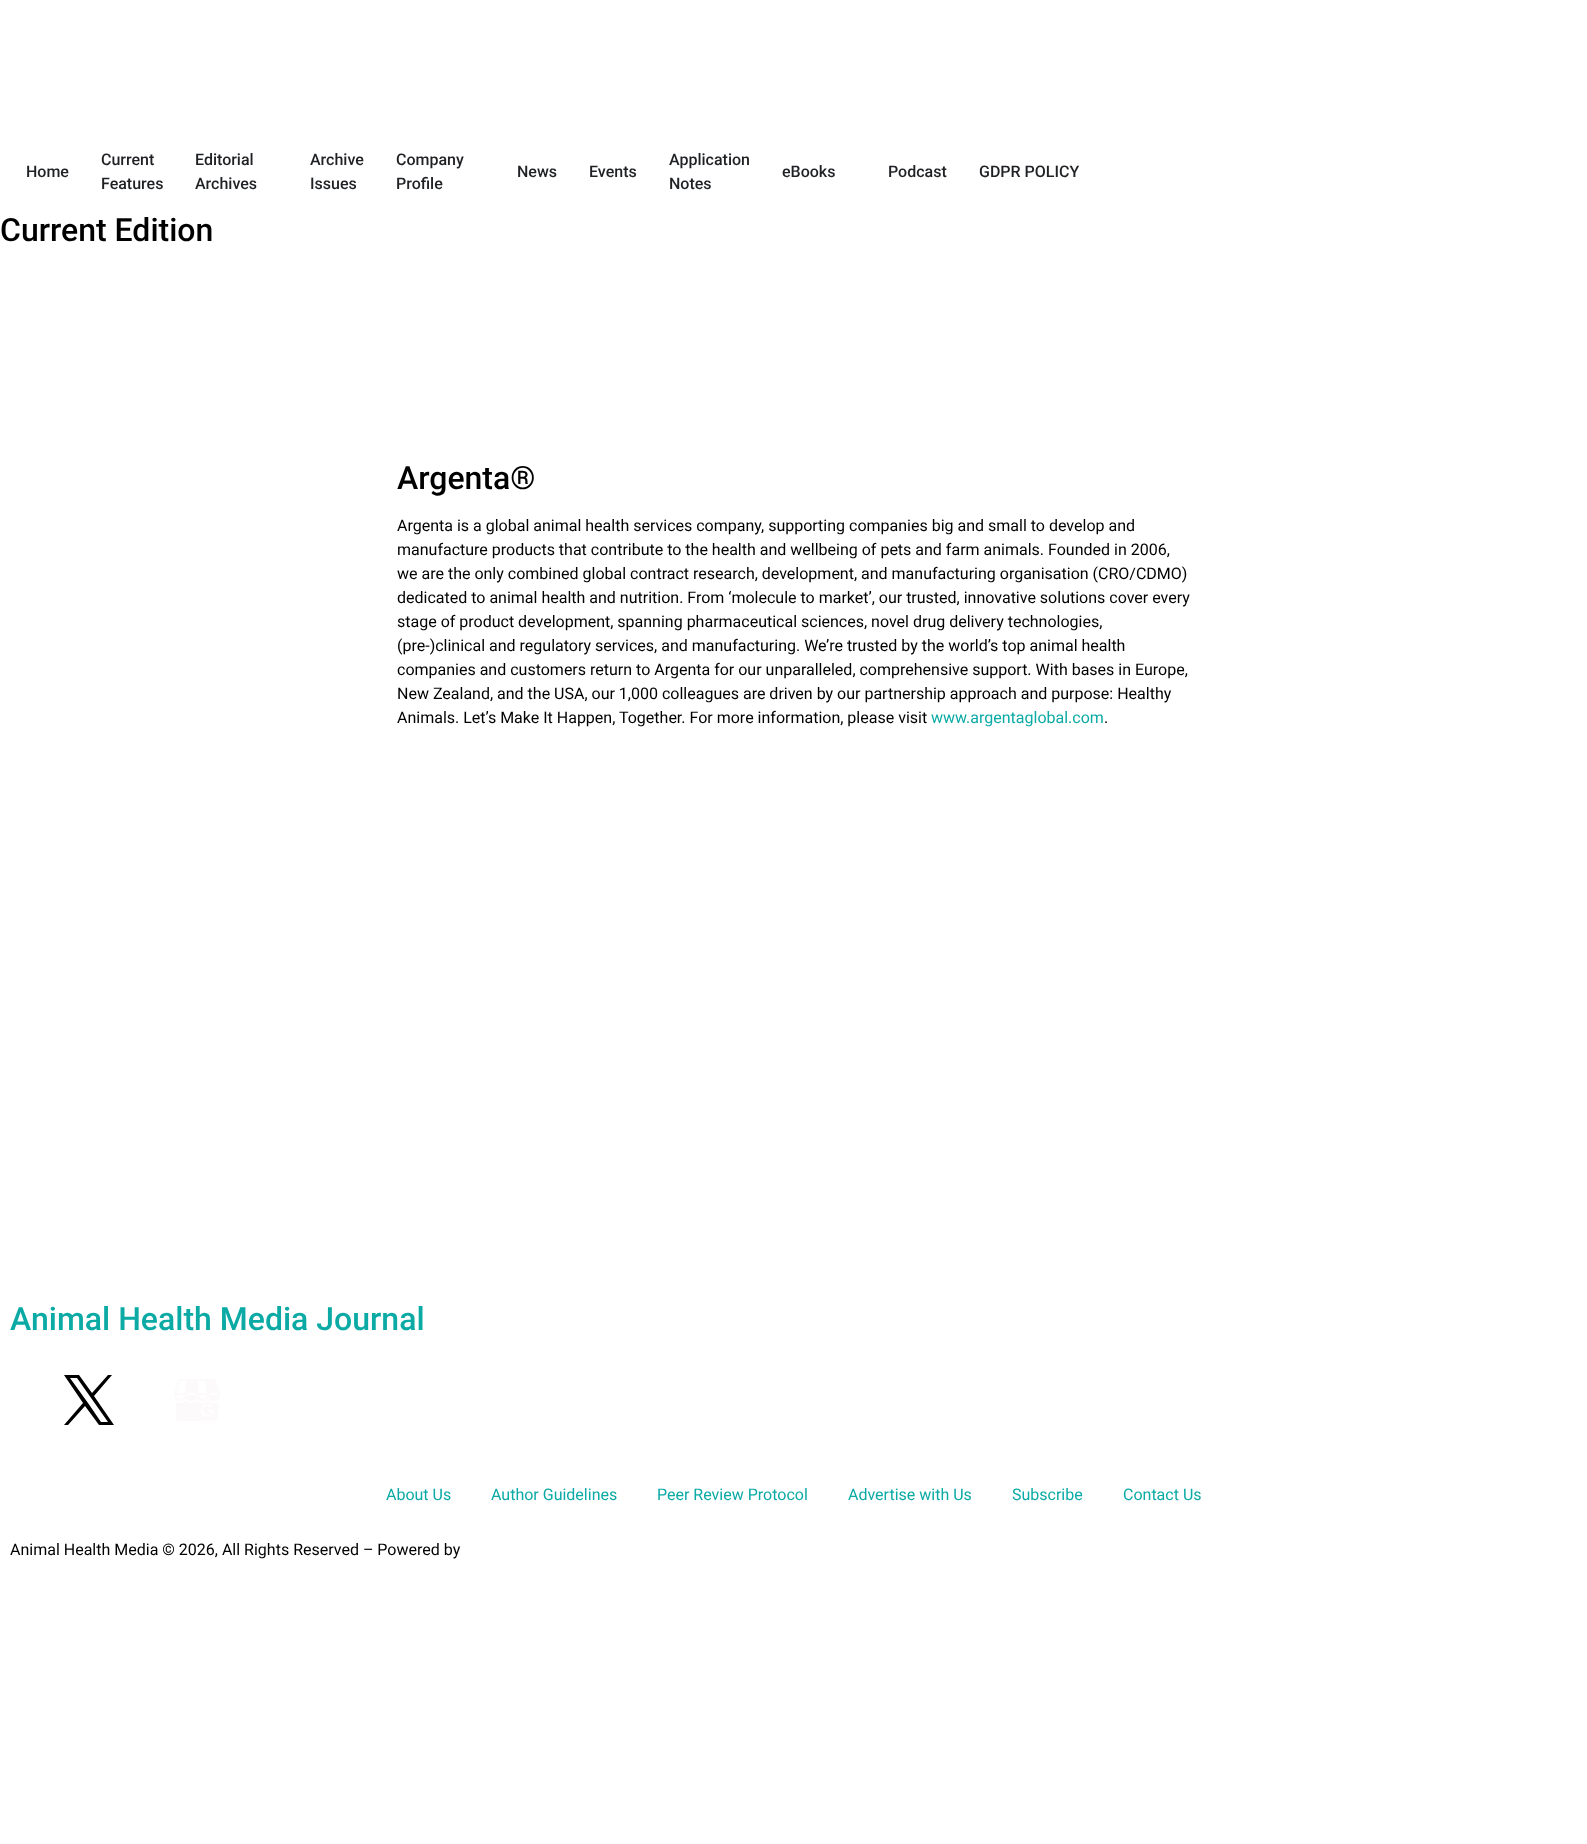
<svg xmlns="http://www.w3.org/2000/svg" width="1587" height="1844">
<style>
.a{font:500 16px Roboto;fill:#1f2124}
.b{font:500 32px Roboto;fill:#000}
.c{font:16px Roboto;fill:#000}
.d{font:16px Roboto;fill:#0baaa5}
.e{font:500 32px Roboto;fill:#0baaa5}
</style>
<rect width="100%" height="100%" fill="#fff"/>
<path fill="#000" d="M94 1396l18-21h-4l-16 18l-13-18h-15l19 28l-19 22h4l17-19l14 19h15zm-6 7l-18-25h7l31 44h-7z"/>
<image href="1.png" x="174" y="1379" width="46" height="42"/>
<text class="a" x="26" y="177">Home</text>
<text class="a" x="101" y="165">Current</text>
<text class="a" x="101" y="189">Features</text>
<text class="a" x="195" y="165">Editorial</text>
<text class="a" x="195" y="189">Archives</text>
<text class="a" x="310" y="165">Archive</text>
<text class="a" x="310" y="189">Issues</text>
<text class="a" x="396" y="165">Company</text>
<text class="a" x="396" y="189">Profile</text>
<text class="a" x="517" y="177">News</text>
<text class="a" x="589" y="177">Events</text>
<text class="a" x="669" y="165">Application</text>
<text class="a" x="669" y="189">Notes</text>
<text class="a" x="782" y="177">eBooks</text>
<text class="a" x="888" y="177">Podcast</text>
<text class="a" x="979" y="177">GDPR POLICY</text>
<text class="b" x="0" y="241">Current Edition</text>
<text class="b" x="397" y="489">Argenta®</text>
<text class="c" x="397" y="531">Argenta is a global animal health services company, supporting companies big and small to develop and</text>
<text class="c" x="397" y="555">manufacture products that contribute to the health and wellbeing of pets and farm animals. Founded in 2006,</text>
<text class="c" x="397" y="579">we are the only combined global contract research, development, and manufacturing organisation (CRO/CDMO)</text>
<text class="c" x="397" y="603">dedicated to animal health and nutrition. From ‘molecule to market’, our trusted, innovative solutions cover every</text>
<text class="c" x="397" y="627">stage of product development, spanning pharmaceutical sciences, novel drug delivery technologies,</text>
<text class="c" x="397" y="651">(pre-)clinical and regulatory services, and manufacturing. We’re trusted by the world’s top animal health</text>
<text class="c" x="397" y="675">companies and customers return to Argenta for our unparalleled, comprehensive support. With bases in Europe,</text>
<text class="c" x="397" y="699">New Zealand, and the USA, our 1,000 colleagues are driven by our partnership approach and purpose: Healthy</text>
<text class="c" x="397" y="723">Animals. Let’s Make It Happen, Together. For more information, please visit</text>
<text class="d" x="931" y="723">www.argentaglobal.com</text>
<text class="c" x="1104" y="723">.</text>
<text class="e" x="10" y="1330">Animal Health Media Journal</text>
<text class="d" x="386" y="1500">About Us</text>
<text class="d" x="491" y="1500">Author Guidelines</text>
<text class="d" x="657" y="1500">Peer Review Protocol</text>
<text class="d" x="848" y="1500">Advertise with Us</text>
<text class="d" x="1012" y="1500">Subscribe</text>
<text class="d" x="1123" y="1500">Contact Us</text>
<text class="c" x="10" y="1555">Animal Health Media © 2026, All Rights Reserved – Powered by</text>
</svg>
